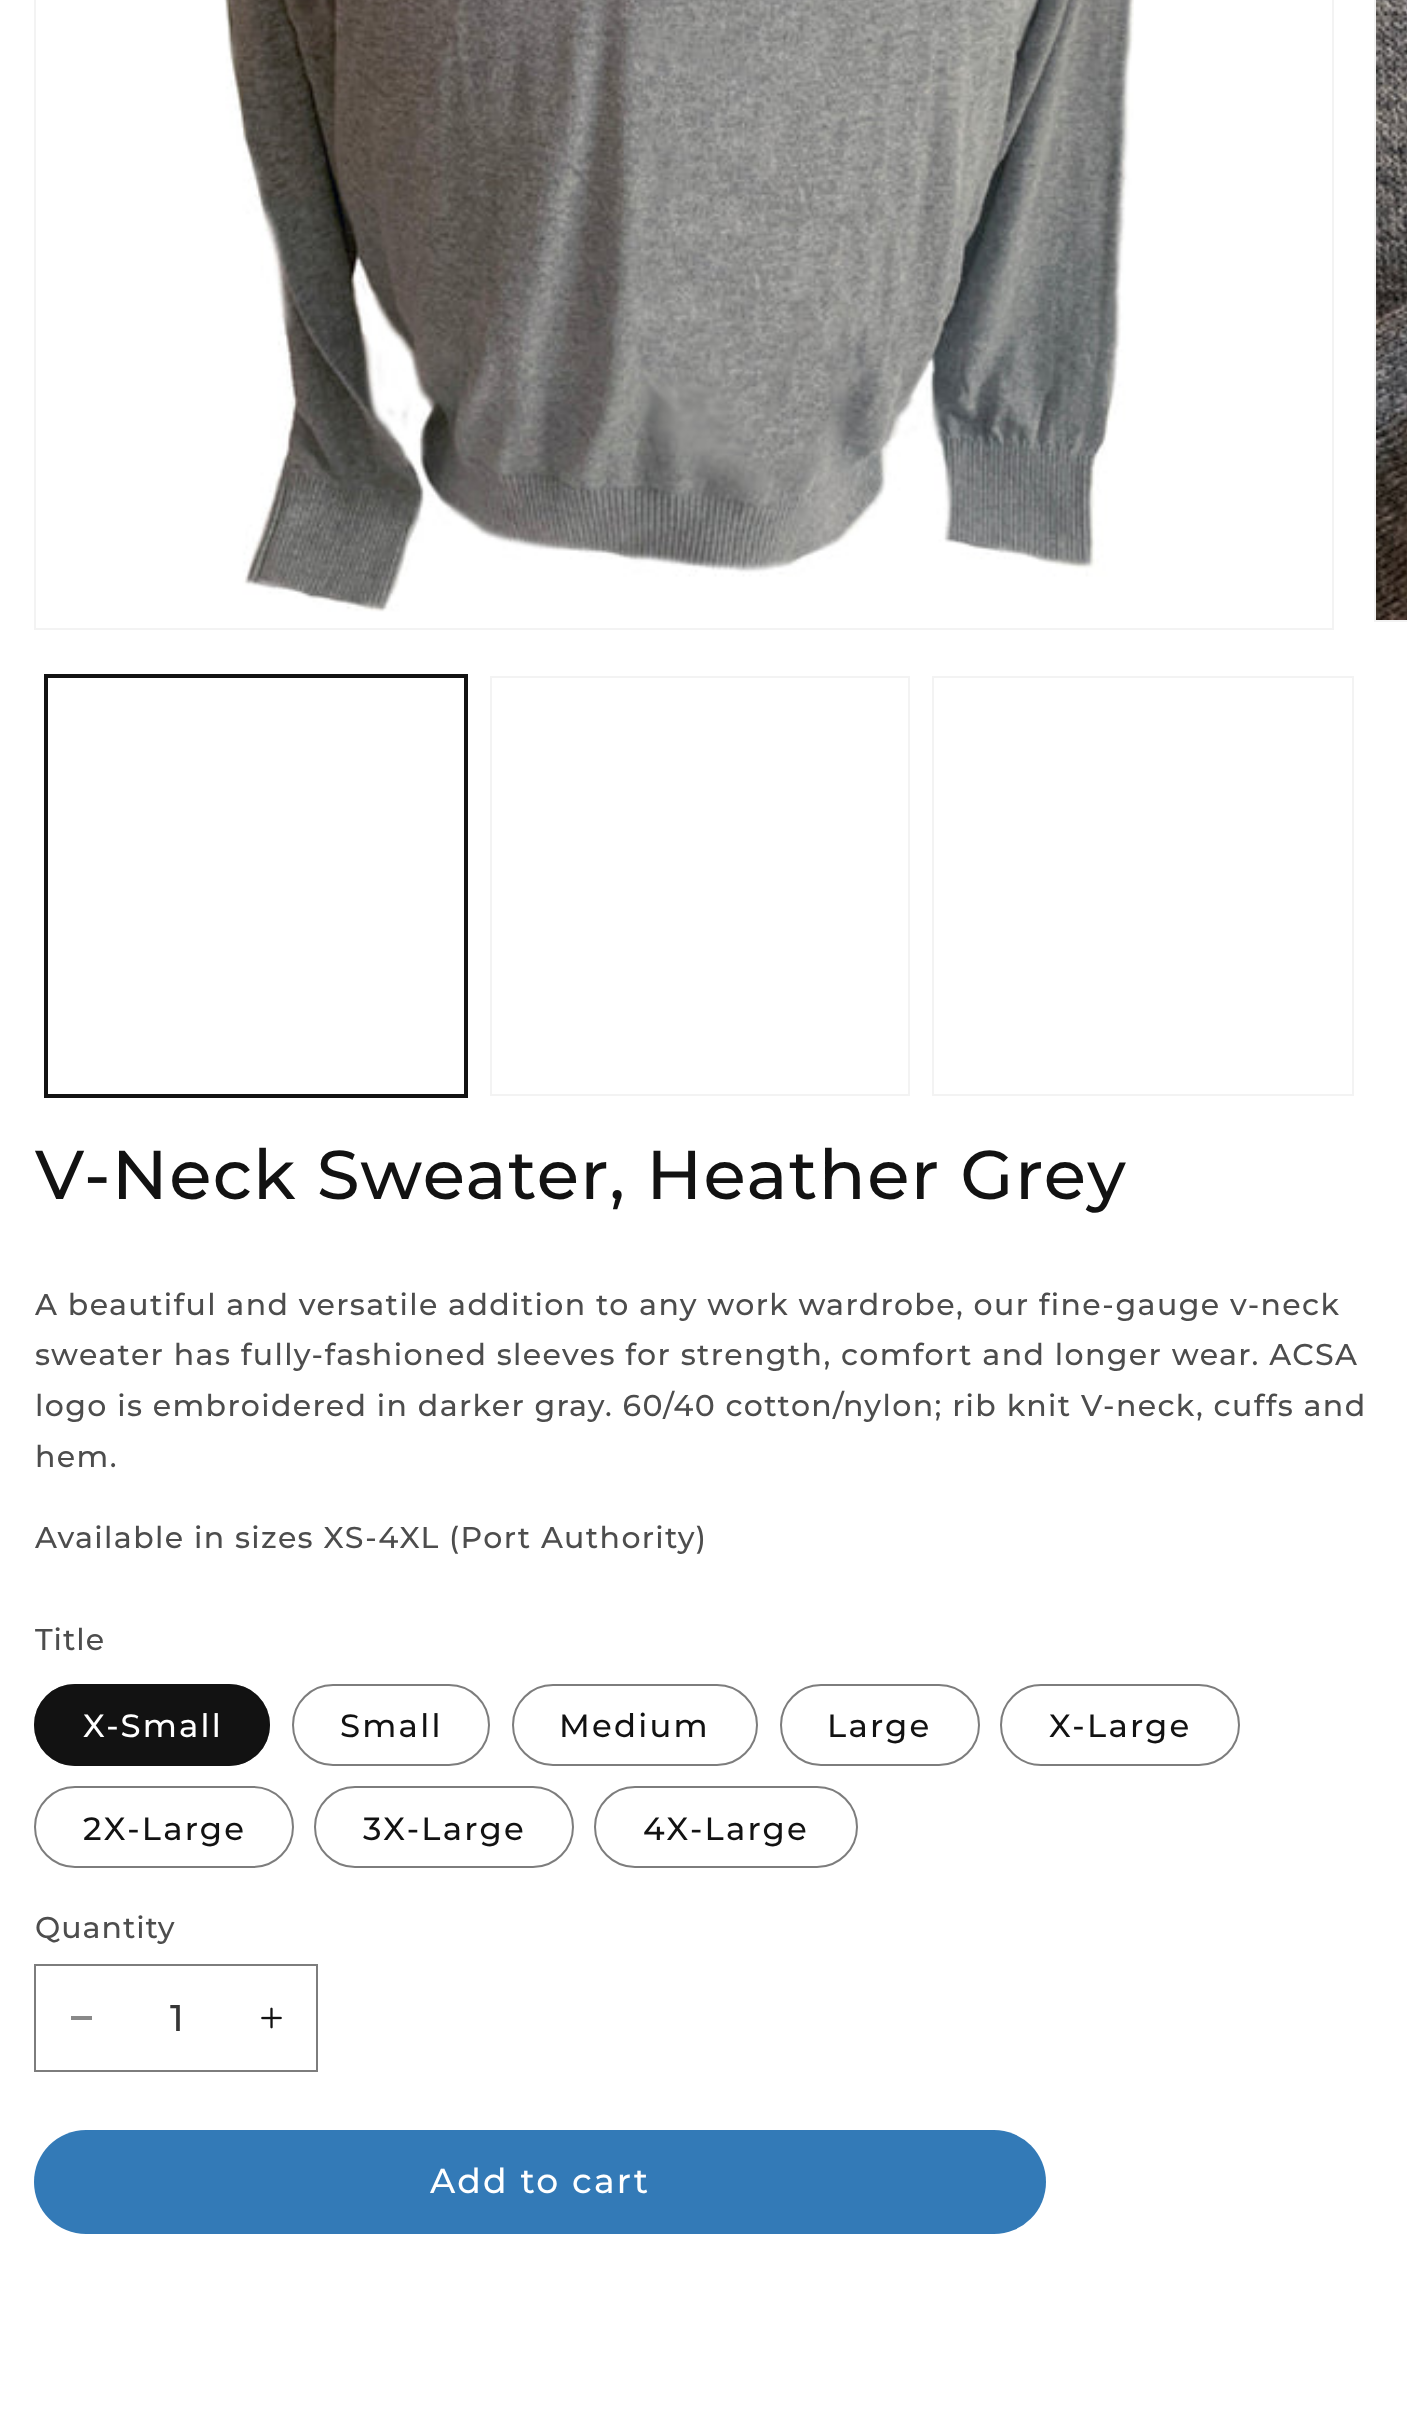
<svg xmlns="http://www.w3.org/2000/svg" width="1407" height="2419">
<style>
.a{font:500 69px Montserrat;letter-spacing:1.38px;fill:#121212}
.b{font:500 30px Montserrat;letter-spacing:1.38px;fill:#4d4d4d}
.c{font:500 30px Montserrat;letter-spacing:1px;fill:#4d4d4d}
.d{font:500 32.25px Montserrat;letter-spacing:2.25px;fill:#fff}
.e{font:500 32.25px Montserrat;letter-spacing:2.25px;fill:#121212}
.f{font:500 37px Montserrat;fill:#363636}
.g{font:500 34.5px Montserrat;letter-spacing:2.25px;fill:#fff}
</style>
<rect width="100%" height="100%" fill="#fff"/>
<path fill="none" stroke="#f3f3f3" stroke-width="2" d="M35 -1h1298v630H35z"/>
<image href="1.png" x="224" y="0" width="910" height="612"/>
<path fill="none" stroke="#f3f3f3" stroke-width="2" d="M1375 -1h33v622H1375z"/>
<image href="2.png" x="1376" y="0" width="31" height="620"/>
<path fill="none" stroke="#121212" stroke-width="2" d="M45 675h422v422H45z"/>
<path fill="none" stroke="#121212" stroke-width="2" d="M47 677h418v418H47z"/>
<path fill="none" stroke="#f3f3f3" stroke-width="2" d="M491 677h418v418H491z"/>
<path fill="none" stroke="#f3f3f3" stroke-width="2" d="M933 677h420v418H933z"/>
<rect fill="#121212" x="34" y="1684" width="236" height="82" rx="41"/>
<rect fill="none" stroke="#1212128c" stroke-width="2" x="35" y="1685" width="234" height="80" rx="40"/>
<rect fill="none" stroke="#7d7d7d" stroke-width="2" x="293" y="1685" width="196" height="80" rx="40"/>
<rect fill="none" stroke="#7d7d7d" stroke-width="2" x="513" y="1685" width="244" height="80" rx="40"/>
<rect fill="none" stroke="#7d7d7d" stroke-width="2" x="781" y="1685" width="198" height="80" rx="40"/>
<rect fill="none" stroke="#7d7d7d" stroke-width="2" x="1001" y="1685" width="238" height="80" rx="40"/>
<rect fill="none" stroke="#7d7d7d" stroke-width="2" x="35" y="1787" width="258" height="80" rx="40"/>
<rect fill="none" stroke="#7d7d7d" stroke-width="2" x="315" y="1787" width="258" height="80" rx="40"/>
<rect fill="none" stroke="#7d7d7d" stroke-width="2" x="595" y="1787" width="262" height="80" rx="40"/>
<path fill="#898989" d="M71 2016h21v4H71z"/>
<image href="3.png" x="261" y="2007" width="21" height="22"/>
<path fill="none" stroke="#7d7d7d" stroke-width="2" d="M35 1965h282v106H35z"/>
<rect fill="#337ab7" x="34" y="2130" width="1012" height="104" rx="52"/>
<text class="a" x="35" y="1199">V-Neck Sweater, Heather Grey</text>
<text class="b" x="35" y="1315">A beautiful and versatile addition to any work wardrobe, our fine-gauge v-neck</text>
<text class="b" x="35" y="1365">sweater has fully-fashioned sleeves for strength, comfort and longer wear. ACSA</text>
<text class="b" x="35" y="1416">logo is embroidered in darker gray. 60/40 cotton/nylon; rib knit V-neck, cuffs and</text>
<text class="b" x="35" y="1467">hem.</text>
<text class="b" x="35" y="1548">Available in sizes XS-4XL (Port Authority)</text>
<text class="c" x="35" y="1650">Title</text>
<text class="d" x="83" y="1737">X-Small</text>
<text class="e" x="340" y="1737">Small</text>
<text class="e" x="559" y="1737">Medium</text>
<text class="e" x="827" y="1737">Large</text>
<text class="e" x="1049" y="1737">X-Large</text>
<text class="e" x="83" y="1840">2X-Large</text>
<text class="e" x="363" y="1840">3X-Large</text>
<text class="e" x="643" y="1840">4X-Large</text>
<text class="c" x="35" y="1938">Quantity</text>
<text class="f" x="170" y="2031">1</text>
<text class="g" x="430" y="2193">Add to cart</text>
</svg>
